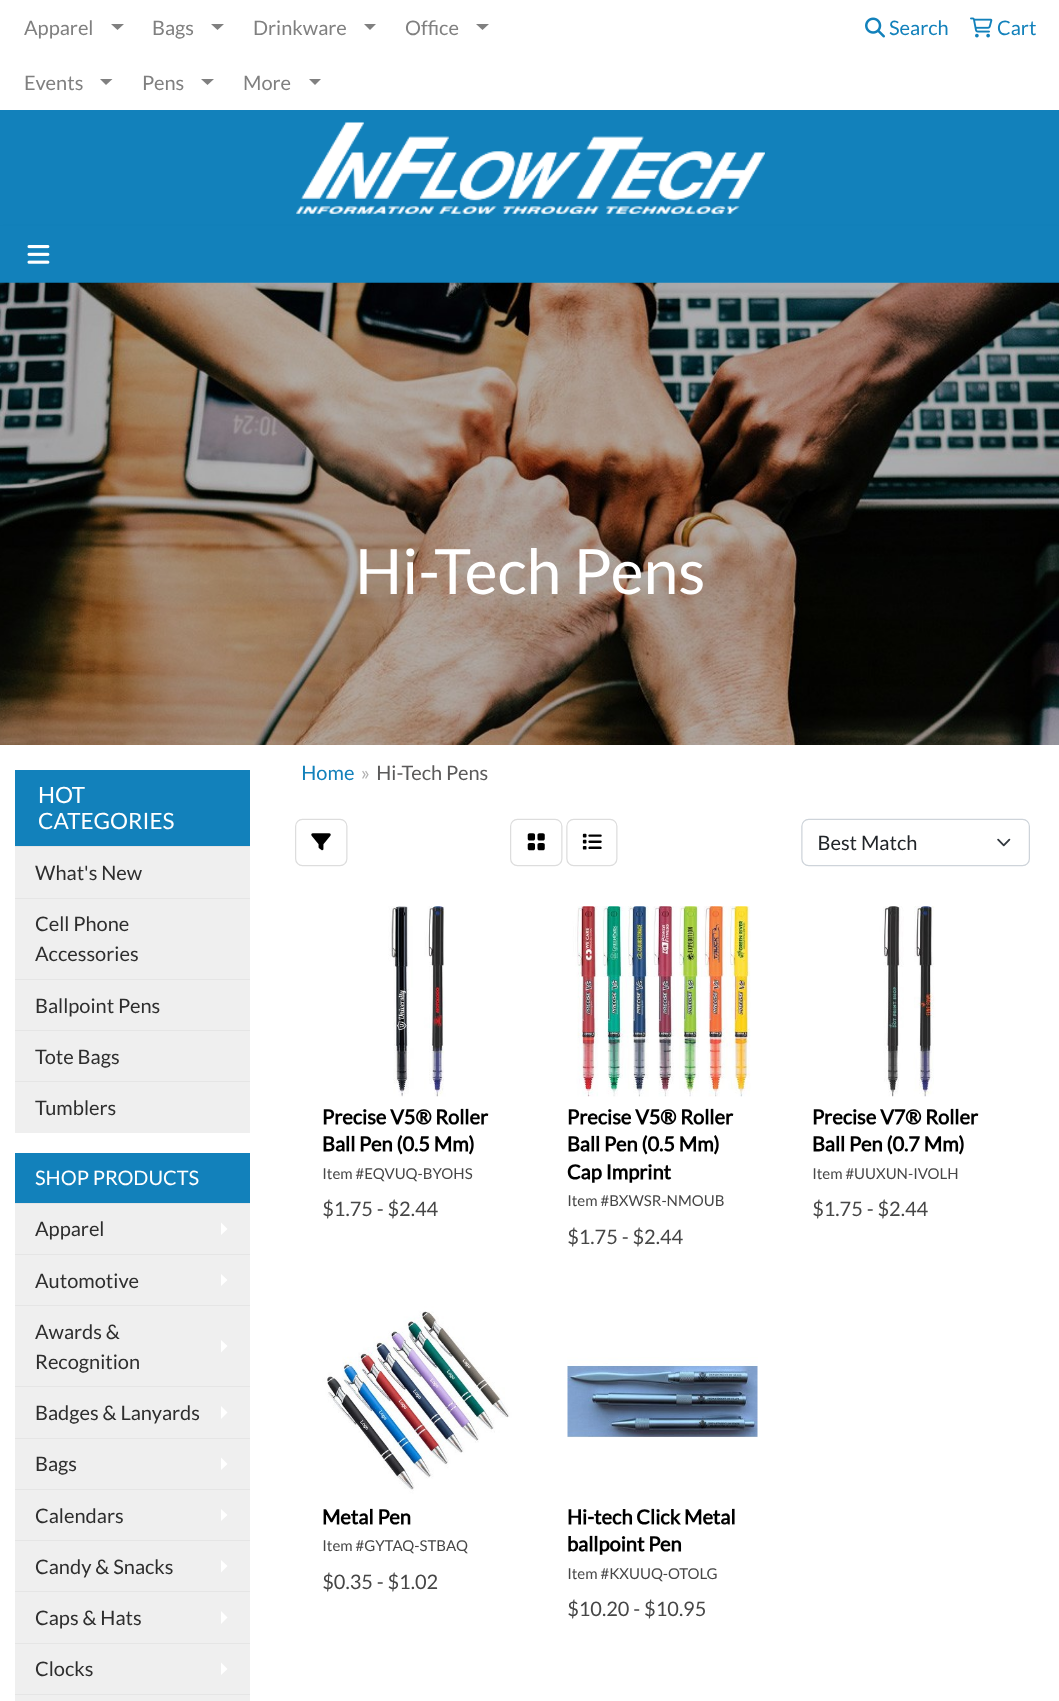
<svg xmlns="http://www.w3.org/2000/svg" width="1059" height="1701">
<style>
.a{font:20px Lato;fill:#808080}
.b{font:20px Lato;fill:#1281bb}
.c{font:62.5px Lato;fill:#fff}
.d{font:22.5px Lato;fill:#fff}
.e{font:20px Lato;fill:#2e2e2e}
.f{font:20px Lato;fill:#fff}
</style>
<defs>
<clipPath id="clip1"><path d="M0 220h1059v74h-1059zm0 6h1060v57h-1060z" clip-rule="evenodd"/></clipPath>
</defs>
<rect width="100%" height="100%" fill="#fff"/>
<path fill="#808080" d="M111 24h13l-6.5 6z"/>
<path fill="#808080" d="M211 24h13l-6.5 6z"/>
<path fill="#808080" d="M364 24h12l-6 6z"/>
<path fill="#808080" d="M476 24h13l-6.5 6z"/>
<path fill="#808080" d="M100 79h12.5l-6.5 6z"/>
<path fill="#808080" d="M201 79h13l-6.5 6z"/>
<path fill="#808080" d="M309 79h12l-6 6z"/>
<image href="1.png" x="865" y="17" width="20" height="21"/>
<image href="2.png" x="970" y="17" width="23" height="21"/>
<path fill="#1281bb" d="M0 110h1059v173H0z"/>
<image href="3.png" x="296" y="122" width="469" height="92"/>
<g clip-path="url(#clip1)">
<path fill="#00000012" filter="blur(2.5px)" d="M0 229h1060v56H0z"/>
</g>
<image href="4.png" x="27" y="245" width="23" height="19"/>
<image href="5.png" x="0" y="282" width="1059" height="463"/>
<path fill="#1281bb" d="M15 770h235v76H15z"/>
<path fill="#efefef" d="M15 847h235v51H15z"/>
<path fill="#e5e5e5" d="M15 846h235v1H15z"/>
<path fill="#efefef" d="M15 899h235v80H15z"/>
<path fill="#e5e5e5" d="M15 898h235v1H15z"/>
<path fill="#efefef" d="M15 980h235v50H15z"/>
<path fill="#e5e5e5" d="M15 979h235v1H15z"/>
<path fill="#efefef" d="M15 1031h235v50H15z"/>
<path fill="#e5e5e5" d="M15 1030h235v1H15z"/>
<path fill="#efefef" d="M15 1082h235v51H15z"/>
<path fill="#e5e5e5" d="M15 1081h235v1H15z"/>
<path fill="#1281bb" d="M15 1153h235v50H15z"/>
<path fill="#efefef" d="M15 1204h235v50H15z"/>
<path fill="#e5e5e5" d="M15 1203h235v1H15z"/>
<path fill="#fff" d="M221 1235v-12.5l6.5 6.5z"/>
<path fill="#efefef" d="M15 1255h235v50H15z"/>
<path fill="#e5e5e5" d="M15 1254h235v1H15z"/>
<path fill="#fff" d="M221 1286v-12l6.5 6z"/>
<path fill="#efefef" d="M15 1306h235v80H15z"/>
<path fill="#e5e5e5" d="M15 1305h235v1H15z"/>
<path fill="#fff" d="M221 1352.5v-12.5l6.5 6z"/>
<path fill="#efefef" d="M15 1387h235v51H15z"/>
<path fill="#e5e5e5" d="M15 1386h235v1H15z"/>
<path fill="#fff" d="M221 1419v-13l6.5 6.5z"/>
<path fill="#efefef" d="M15 1439h235v50H15z"/>
<path fill="#e5e5e5" d="M15 1438h235v1H15z"/>
<path fill="#fff" d="M221 1470v-12.5l6.5 6.5z"/>
<path fill="#efefef" d="M15 1490h235v50H15z"/>
<path fill="#e5e5e5" d="M15 1489h235v1H15z"/>
<path fill="#fff" d="M221 1521v-12l6.5 6z"/>
<path fill="#efefef" d="M15 1541h235v50H15z"/>
<path fill="#e5e5e5" d="M15 1540h235v1H15z"/>
<path fill="#fff" d="M221 1572.5v-12.5l6.5 6z"/>
<path fill="#efefef" d="M15 1592h235v51H15z"/>
<path fill="#e5e5e5" d="M15 1591h235v1H15z"/>
<path fill="#fff" d="M221 1624v-13l6.5 6.5z"/>
<path fill="#efefef" d="M15 1644h235v50H15z"/>
<path fill="#e5e5e5" d="M15 1643h235v1H15z"/>
<path fill="#fff" d="M221 1675v-12.5l6.5 6.5z"/>
<path fill="#efefef" d="M15 1695h235v6H15z"/>
<path fill="#e5e5e5" d="M15 1694h235v1H15z"/>
<image href="6.png" x="295" y="765" width="735" height="854"/>
<text class="a" x="24" y="35">Apparel</text>
<text class="a" x="152" y="35">Bags</text>
<text class="a" x="253" y="35">Drinkware</text>
<text class="a" x="405" y="35">Office</text>
<text class="a" x="24" y="90">Events</text>
<text class="a" x="142" y="90">Pens</text>
<text class="a" x="243" y="90">More</text>
<text class="b" x="889" y="35">Search</text>
<text class="b" x="997" y="35">Cart</text>
<text class="c" x="355" y="594">Hi-Tech Pens</text>
<text class="d" x="38" y="803">HOT</text>
<text class="d" x="38" y="829">CATEGORIES</text>
<text class="e" x="35" y="880">What's New</text>
<text class="e" x="35" y="931">Cell Phone</text>
<text class="e" x="35" y="961">Accessories</text>
<text class="e" x="35" y="1013">Ballpoint Pens</text>
<text class="e" x="35" y="1064">Tote Bags</text>
<text class="e" x="35" y="1115">Tumblers</text>
<text class="f" x="35" y="1185">SHOP PRODUCTS</text>
<text class="e" x="35" y="1236">Apparel</text>
<text class="e" x="35" y="1288">Automotive</text>
<text class="e" x="35" y="1339">Awards &amp;</text>
<text class="e" x="35" y="1369">Recognition</text>
<text class="e" x="35" y="1420">Badges &amp; Lanyards</text>
<text class="e" x="35" y="1471">Bags</text>
<text class="e" x="35" y="1523">Calendars</text>
<text class="e" x="35" y="1574">Candy &amp; Snacks</text>
<text class="e" x="35" y="1625">Caps &amp; Hats</text>
<text class="e" x="35" y="1676">Clocks</text>
</svg>
